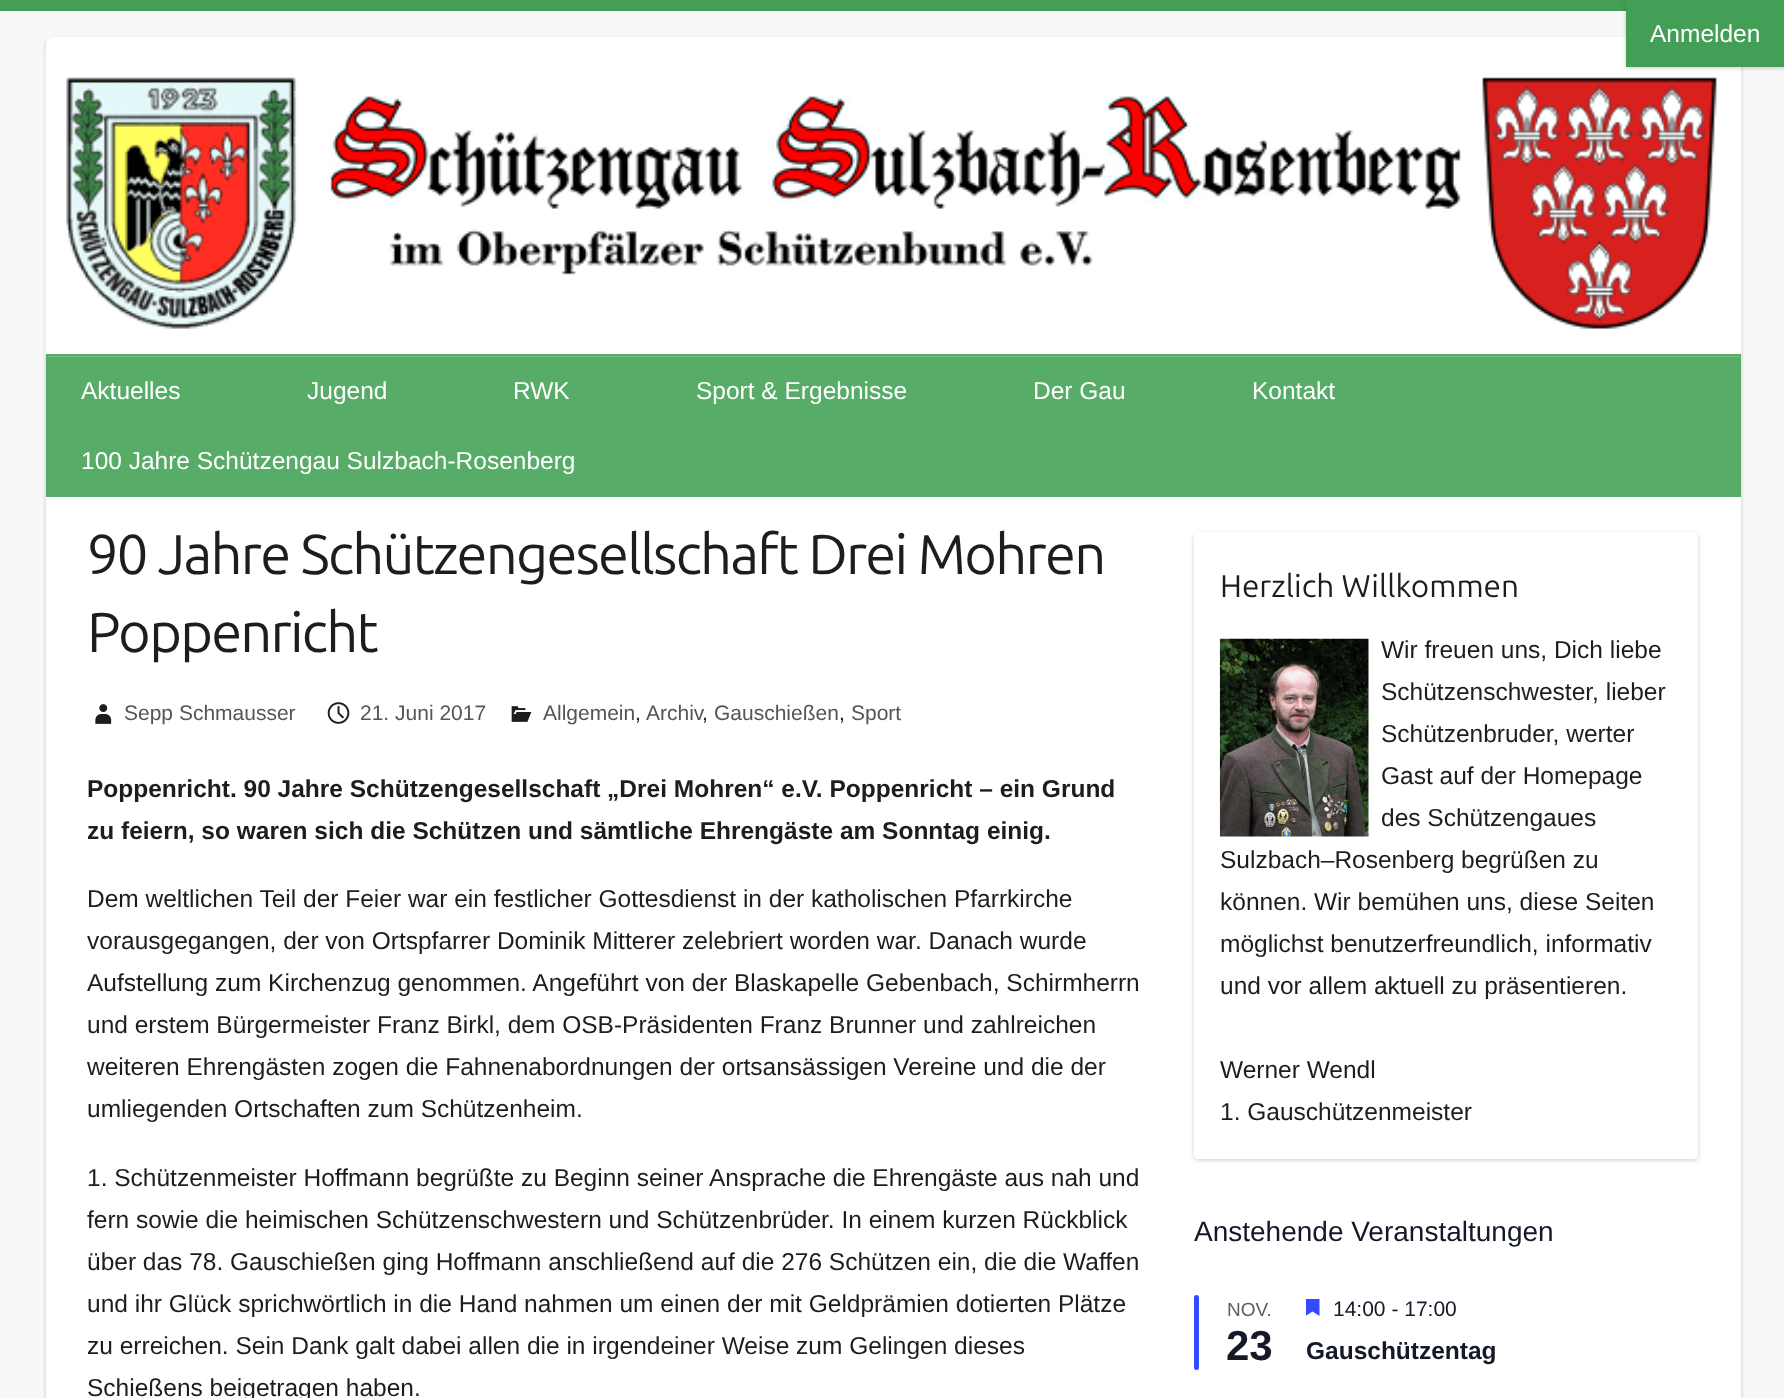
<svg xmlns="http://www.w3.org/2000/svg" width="1784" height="1398">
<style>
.a{font:24.5px Liberation Sans;fill:#fff}
.b{font:56px Ubuntu;letter-spacing:-1.75px;fill:#1b1e1f}
.c{font:21px Liberation Sans;fill:#555}
.d{font:21px Liberation Sans;fill:#1b1e1f}
.e{font:bold 24.5px Liberation Sans;fill:#1b1e1f}
.f{font:24.5px Liberation Sans;fill:#1b1e1f}
.g{font:31.5px Ubuntu;fill:#1b1e1f}
.h{font:28px Liberation Sans;fill:#141827}
.i{font:19px Liberation Sans;fill:#5d5d5d}
.j{font:bold 42px Liberation Sans;fill:#141827}
.k{font:21px Liberation Sans;fill:#141827}
.l{font:bold 24.5px Liberation Sans;fill:#141827}
</style>
<defs>
<clipPath id="clip1"><path d="M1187 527h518v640h-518zm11 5h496c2 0 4 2 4 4v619c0 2-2 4-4 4h-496c-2 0-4-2-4-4v-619c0-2 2-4 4-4z" clip-rule="evenodd"/></clipPath>
<clipPath id="clip2"><path d="M1306 1299h14v17H1306z"/></clipPath>
</defs>
<rect width="100%" height="100%" fill="#f8f8f8"/>
<path fill="#439f55" d="M0 0h1626v11H0z"/>
<rect fill="#00000033" filter="blur(2px)" x="46" y="39" width="1695" height="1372" rx="7"/>
<rect fill="#fff" x="46" y="37" width="1695" height="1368" rx="7"/>
<image href="1.png" x="45" y="51" width="1697" height="303"/>
<path fill="#00000033" filter="blur(2px)" d="M1626 2h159v66H1626z"/>
<path fill="#439f55" d="M1626 0h158v67H1626z"/>
<path fill="#57ad68" d="M48 357h1691v138H48z"/>
<path fill="#79bd86" d="M47 356h1693v1H47z"/>
<path fill="none" stroke="#57ad68" stroke-width="2" d="M47 355h1693v141H47z"/>
<image href="2.png" x="95" y="704" width="17" height="20"/>
<image href="3.png" x="327" y="702" width="23" height="22"/>
<image href="4.png" x="511" y="706" width="21" height="16"/>
<g clip-path="url(#clip1)">
<rect fill="#00000033" filter="blur(2px)" x="1194" y="534" width="504" height="626" rx="4"/>
</g>
<rect fill="#ffffffcc" x="1194" y="532" width="504" height="627" rx="4"/>
<image href="5.png" x="1219" y="638" width="150" height="199"/>
<rect fill="#334aff" x="1194" y="1295" width="5" height="75" rx="2.5"/>
<g clip-path="url(#clip2)">
<path fill="#334aff" fill-rule="evenodd" d="M1305.5 1298.5h14v17.5l-7-4.5l-7 4.5z"/>
</g>
<text class="a" x="1650" y="42">Anmelden</text>
<text class="a" x="81" y="399">Aktuelles</text>
<text class="a" x="307" y="399">Jugend</text>
<text class="a" x="513" y="399">RWK</text>
<text class="a" x="696" y="399">Sport &amp; Ergebnisse</text>
<text class="a" x="1033" y="399">Der Gau</text>
<text class="a" x="1252" y="399">Kontakt</text>
<text class="a" x="81" y="469">100 Jahre Schützengau Sulzbach-Rosenberg</text>
<text class="b" x="87" y="574">90 Jahre Schützengesellschaft Drei Mohren</text>
<text class="b" x="87" y="652">Poppenricht</text>
<text class="c" x="124" y="720">Sepp Schmausser</text>
<text class="c" x="360" y="720">21. Juni 2017</text>
<text class="c" x="543" y="720">Allgemein</text>
<text class="d" x="635" y="720">,</text>
<text class="c" x="646" y="720">Archiv</text>
<text class="d" x="702" y="720">,</text>
<text class="c" x="714" y="720">Gauschießen</text>
<text class="d" x="839" y="720">,</text>
<text class="c" x="851" y="720">Sport</text>
<text class="e" x="87" y="797">Poppenricht. 90 Jahre Schützengesellschaft „Drei Mohren“ e.V. Poppenricht – ein Grund</text>
<text class="e" x="87" y="839">zu feiern, so waren sich die Schützen und sämtliche Ehrengäste am Sonntag einig.</text>
<text class="f" x="87" y="907">Dem weltlichen Teil der Feier war ein festlicher Gottesdienst in der katholischen Pfarrkirche</text>
<text class="f" x="87" y="949">vorausgegangen, der von Ortspfarrer Dominik Mitterer zelebriert worden war. Danach wurde</text>
<text class="f" x="87" y="991">Aufstellung zum Kirchenzug genommen. Angeführt von der Blaskapelle Gebenbach, Schirmherrn</text>
<text class="f" x="87" y="1033">und erstem Bürgermeister Franz Birkl, dem OSB-Präsidenten Franz Brunner und zahlreichen</text>
<text class="f" x="87" y="1075">weiteren Ehrengästen zogen die Fahnenabordnungen der ortsansässigen Vereine und die der</text>
<text class="f" x="87" y="1117">umliegenden Ortschaften zum Schützenheim.</text>
<text class="f" x="87" y="1186">1. Schützenmeister Hoffmann begrüßte zu Beginn seiner Ansprache die Ehrengäste aus nah und</text>
<text class="f" x="87" y="1228">fern sowie die heimischen Schützenschwestern und Schützenbrüder. In einem kurzen Rückblick</text>
<text class="f" x="87" y="1270">über das 78. Gauschießen ging Hoffmann anschließend auf die 276 Schützen ein, die die Waffen</text>
<text class="f" x="87" y="1312">und ihr Glück sprichwörtlich in die Hand nahmen um einen der mit Geldprämien dotierten Plätze</text>
<text class="f" x="87" y="1354">zu erreichen. Sein Dank galt dabei allen die in irgendeiner Weise zum Gelingen dieses</text>
<text class="f" x="87" y="1396">Schießens beigetragen haben.</text>
<text class="g" x="1220" y="597">Herzlich Willkommen</text>
<text class="f" x="1381" y="658">Wir freuen uns, Dich liebe</text>
<text class="f" x="1381" y="700">Schützenschwester, lieber</text>
<text class="f" x="1381" y="742">Schützenbruder, werter</text>
<text class="f" x="1381" y="784">Gast auf der Homepage</text>
<text class="f" x="1381" y="826">des Schützengaues</text>
<text class="f" x="1220" y="868">Sulzbach–Rosenberg begrüßen zu</text>
<text class="f" x="1220" y="910">können. Wir bemühen uns, diese Seiten</text>
<text class="f" x="1220" y="952">möglichst benutzerfreundlich, informativ</text>
<text class="f" x="1220" y="994">und vor allem aktuell zu präsentieren.</text>
<text class="f" x="1220" y="1078">Werner Wendl</text>
<text class="f" x="1220" y="1120">1. Gauschützenmeister</text>
<text class="h" x="1194" y="1241">Anstehende Veranstaltungen</text>
<text class="i" x="1227" y="1316">NOV.</text>
<text class="j" x="1226" y="1360">23</text>
<text class="k" x="1333" y="1316">14:00 - 17:00</text>
<text class="l" x="1306" y="1359">Gauschützentag</text>
</svg>
